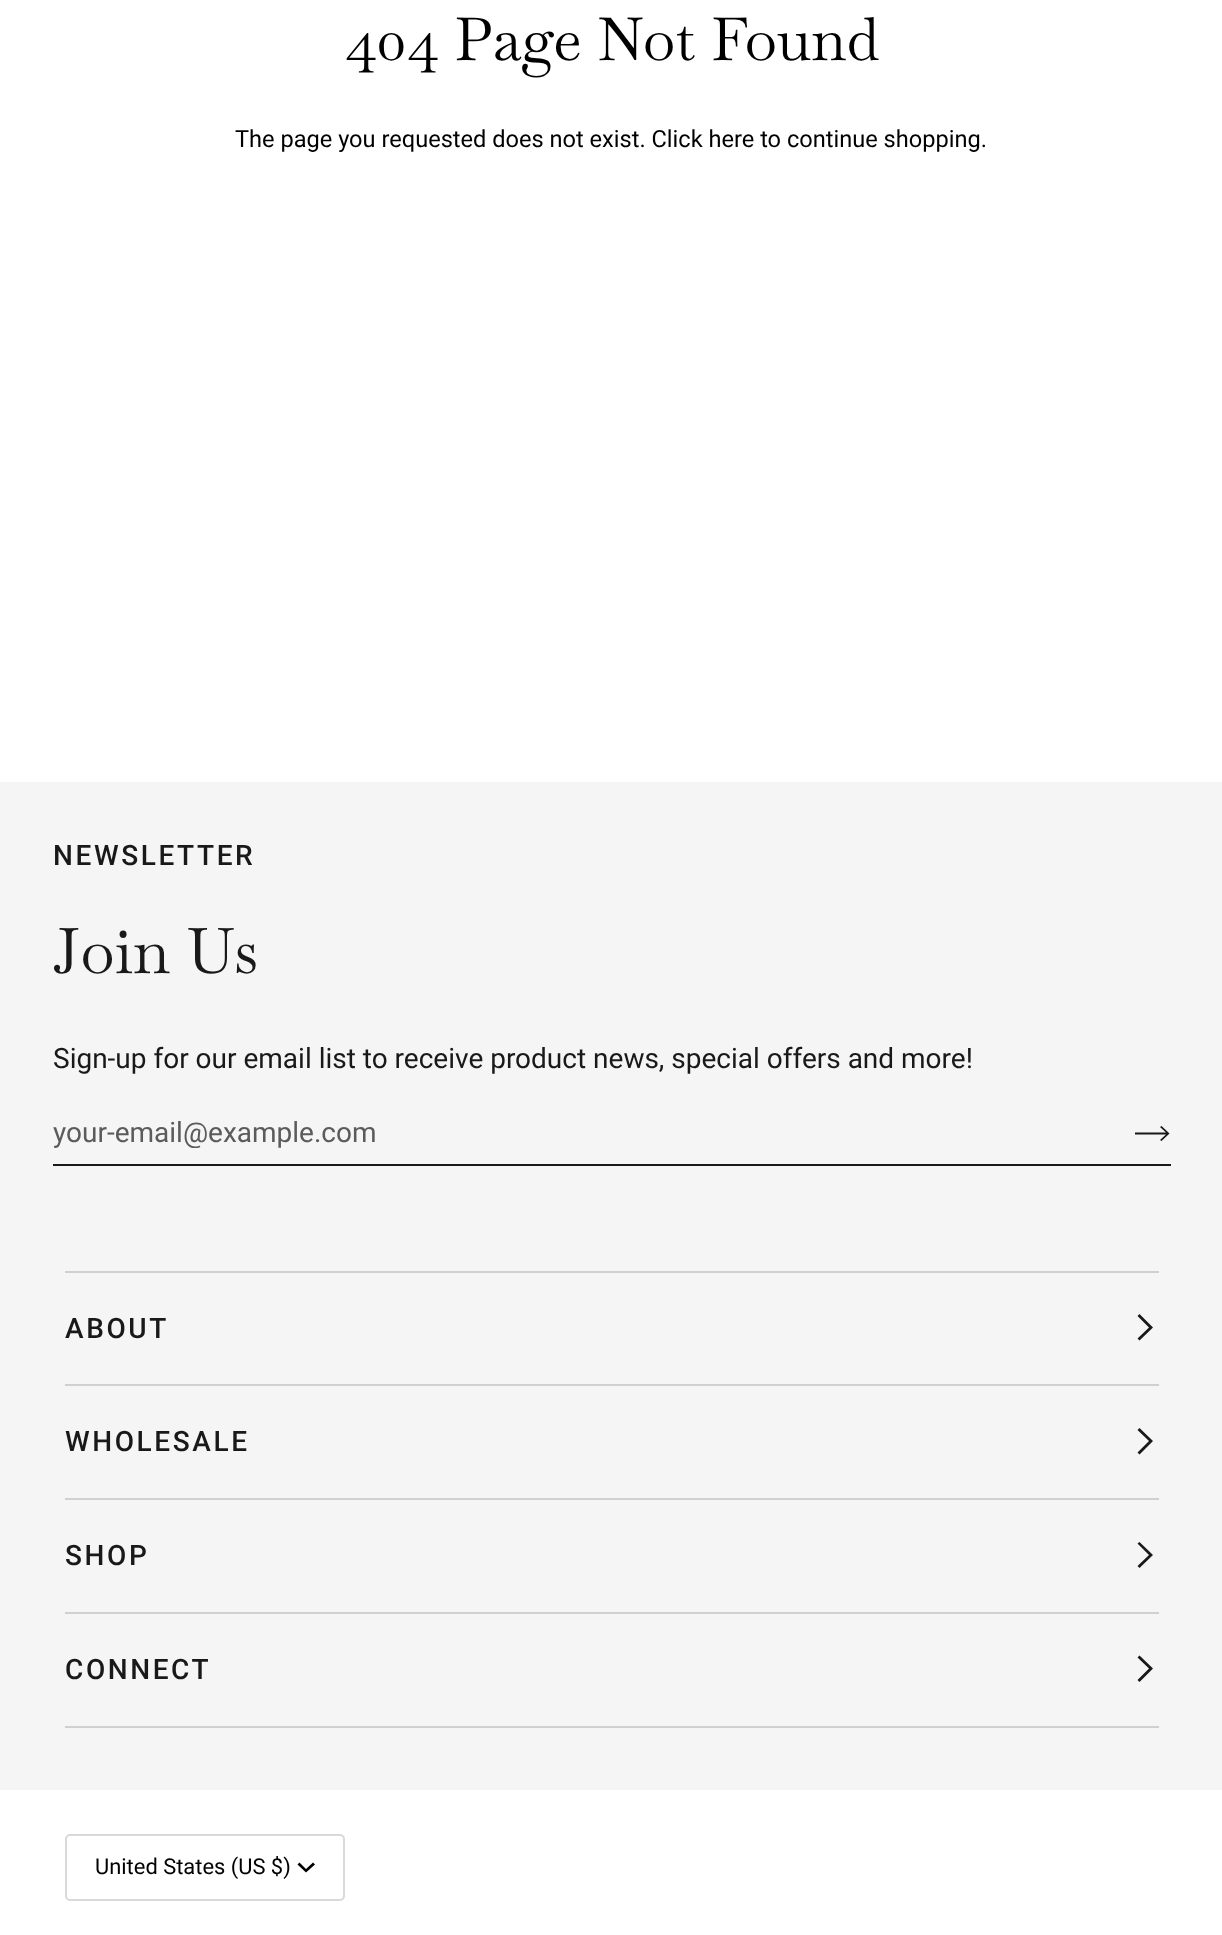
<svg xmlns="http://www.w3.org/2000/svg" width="1222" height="1935">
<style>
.a{font:59.5px Baskervville;fill:#000}
.b{font:23.6px Roboto;fill:#000}
.c{font:500 28px Roboto;letter-spacing:2.6px;fill:#191919}
.d{font:63px Baskervville;fill:#191919}
.e{font:28px Roboto;fill:#191919}
.f{font:28px Roboto;fill:#5b5b5b}
.g{font:21.9px Roboto;fill:#000}
</style>
<defs>
<clipPath id="clip1"><path d="M53 1115h1008v33H53z"/></clipPath>
</defs>
<rect width="100%" height="100%" fill="#fff"/>
<path fill="#f5f5f5" d="M0 782h1222v1008H0z"/>
<path fill="#191919" d="M53 1164h1118v2H53z"/>
<path fill="#191919" d="M1160 1127l1.5-1l8 7.5l-8 7.5l-1.5-1l6-5.5h-31v-2h31z"/>
<path fill="#d0d0d0" d="M65 1271h1094v2H65z"/>
<path fill="#d0d0d0" d="M65 1384h1094v2H65z"/>
<path fill="#191919" fill-rule="evenodd" d="M1149 1327.5l-11.5-11.5l2-2l13.5 13.5l-13.5 13l-2-2z"/>
<path fill="#d0d0d0" d="M65 1498h1094v2H65z"/>
<path fill="#191919" fill-rule="evenodd" d="M1149 1441l-11.5-11l2-2l13.5 13l-13.5 13.5l-2-2z"/>
<path fill="#d0d0d0" d="M65 1612h1094v2H65z"/>
<path fill="#191919" fill-rule="evenodd" d="M1149 1555l-11.5-11.5l2-1.5l13.5 13l-13.5 13l-2-2z"/>
<path fill="#d0d0d0" d="M65 1726h1094v2H65z"/>
<path fill="#191919" fill-rule="evenodd" d="M1149 1668.5l-11.5-11l2-2l13.5 13l-13.5 13.5l-2-2z"/>
<rect fill="none" stroke="#d9d9d9" stroke-width="2" x="66" y="1835" width="278" height="65" rx="4"/>
<path fill="#000" fill-rule="evenodd" d="M297.5 1864.5l2-2l6.5 6.5l7-6.5l2 2l-9 8z"/>
<text class="a" x="344" y="60">404 Page Not Found</text>
<text class="b" x="235" y="147">The page you requested does not exist. Click here to continue shopping.</text>
<text class="c" x="53" y="865">NEWSLETTER</text>
<text class="d" x="53" y="973">Join Us</text>
<text class="e" x="53" y="1068">Sign-up for our email list to receive product news, special offers and more!</text>
<g clip-path="url(#clip1)">
<text class="f" x="53" y="1142">your-email@example.com</text>
</g>
<text class="c" x="65" y="1338">ABOUT</text>
<text class="c" x="65" y="1451">WHOLESALE</text>
<text class="c" x="65" y="1565">SHOP</text>
<text class="c" x="65" y="1679">CONNECT</text>
<text class="g" x="95" y="1874">United States (US $)</text>
</svg>
